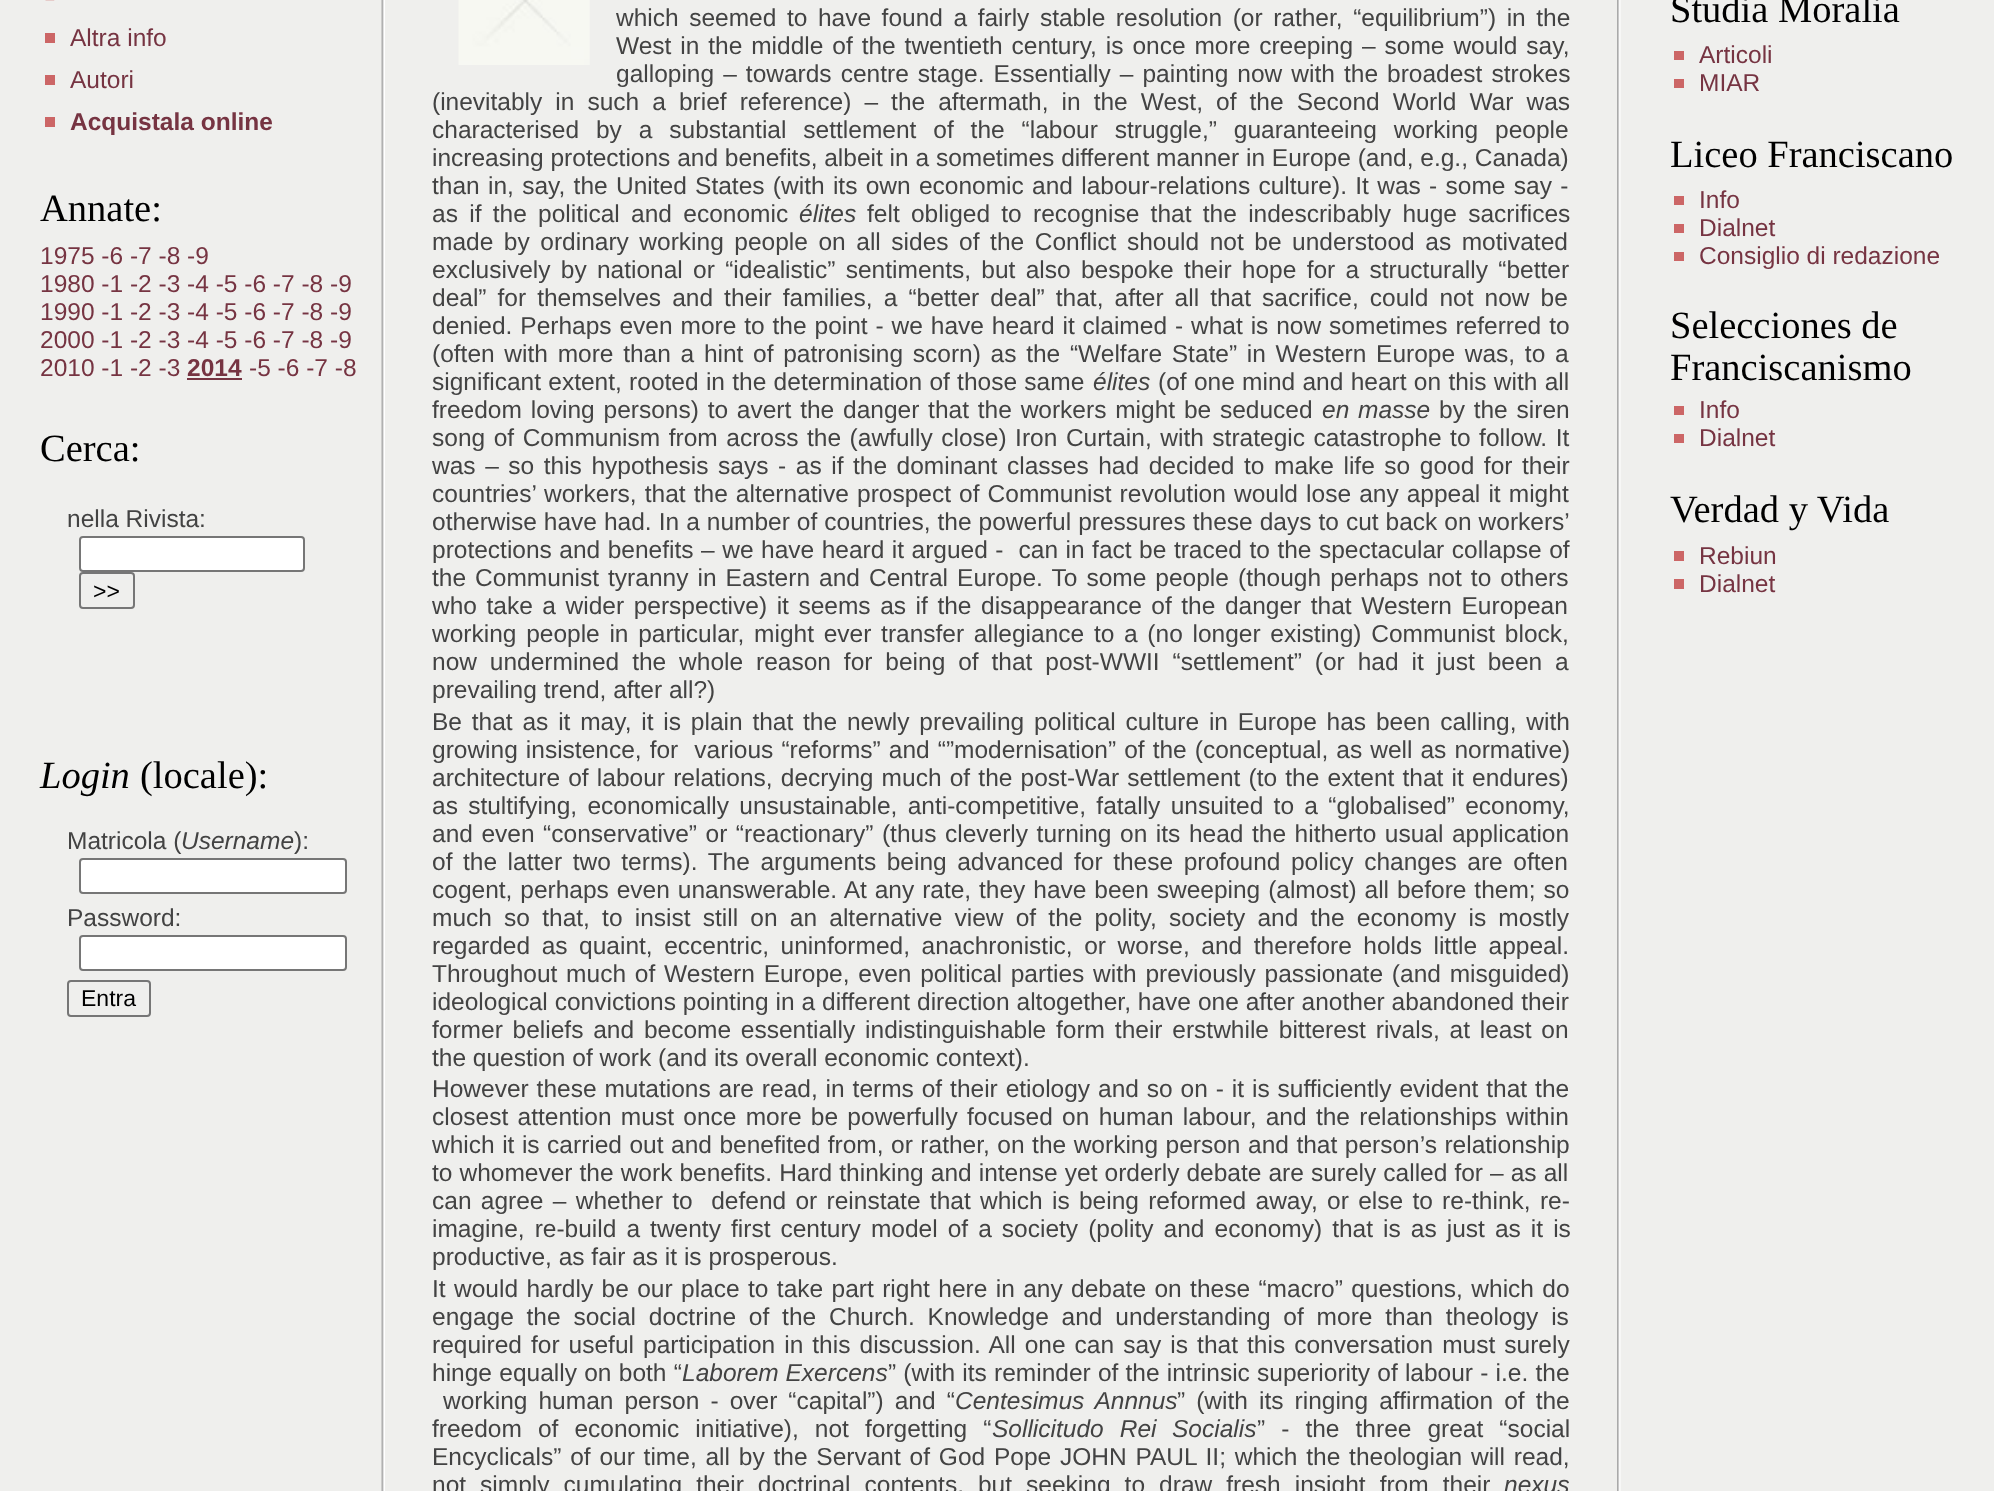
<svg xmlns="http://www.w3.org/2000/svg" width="1994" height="1491">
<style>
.a{font:24.5px Liberation Sans;fill:#763442}
.b{font:bold 24.5px Liberation Sans;fill:#763442}
.c{font:38.5px Liberation Serif;fill:#000}
.d{font:24.5px Liberation Sans;fill:#434343}
.e{font:23px Liberation Sans;fill:#000}
.f{font:italic 38.5px Liberation Serif;fill:#000}
.g{font:italic 24.5px Liberation Sans;fill:#434343}
</style>
<rect width="100%" height="100%" fill="#efefed"/>
<image href="1.png" x="381" y="0" width="4" height="1491"/>
<image href="2.png" x="45" y="0" width="10" height="1"/>
<path fill="#c66" d="M45 33h10v10H45z"/>
<path fill="#c66" d="M45 75h10v10H45z"/>
<path fill="#c66" d="M45 117h10v10H45z"/>
<path fill="#763442" d="M187 378h55v2H187z"/>
<rect fill="#fff" stroke="#767676" stroke-width="2" x="80" y="537" width="224" height="34" rx="3"/>
<rect fill="none" stroke="#767676" stroke-width="2" x="80" y="573" width="54" height="35" rx="3"/>
<rect fill="#fff" stroke="#767676" stroke-width="2" x="80" y="859" width="266" height="34" rx="3"/>
<rect fill="#fff" stroke="#767676" stroke-width="2" x="80" y="936" width="266" height="34" rx="3"/>
<rect fill="none" stroke="#767676" stroke-width="2" x="68" y="981" width="82" height="35" rx="3"/>
<image href="3.png" x="458" y="0" width="132" height="65"/>
<image href="4.png" x="1617" y="0" width="4" height="1491"/>
<path fill="#c66" d="M1674 51h10v9H1674z"/>
<path fill="#c66" d="M1674 79h10v9H1674z"/>
<path fill="#c66" d="M1674 196h10v9H1674z"/>
<path fill="#c66" d="M1674 224h10v9H1674z"/>
<path fill="#c66" d="M1674 252h10v9H1674z"/>
<path fill="#c66" d="M1674 406h10v9H1674z"/>
<path fill="#c66" d="M1674 434h10v9H1674z"/>
<path fill="#c66" d="M1674 551h10v10H1674z"/>
<path fill="#c66" d="M1674 579h10v10H1674z"/>
<text class="a" x="70" y="46">Altra info</text>
<text class="a" x="70" y="88">Autori</text>
<text class="b" x="70" y="130">Acquistala online</text>
<text class="c" x="40" y="221">Annate:</text>
<text class="a" x="40" y="264">1975 -6 -7 -8 -9</text>
<text class="a" x="40" y="292">1980 -1 -2 -3 -4 -5 -6 -7 -8 -9</text>
<text class="a" x="40" y="320">1990 -1 -2 -3 -4 -5 -6 -7 -8 -9</text>
<text class="a" x="40" y="348">2000 -1 -2 -3 -4 -5 -6 -7 -8 -9</text>
<text class="a" x="40" y="376">2010 -1 -2 -3</text>
<text class="b" x="187" y="376">2014</text>
<text class="a" x="249" y="376">-5 -6 -7 -8</text>
<text class="c" x="40" y="461">Cerca:</text>
<text class="d" x="67" y="527">nella Rivista:</text>
<text class="e" x="93" y="599">&gt;&gt;</text>
<text class="f" x="40" y="788">Login</text>
<text class="c" x="140" y="788">(locale):</text>
<text class="d" x="67" y="849">Matricola (</text>
<text class="g" x="181" y="849">Username</text>
<text class="d" x="294" y="849">):</text>
<text class="d" x="67" y="926">Password:</text>
<text class="e" x="81" y="1006">Entra</text>
<text class="d" x="616" y="26" word-spacing="3.75">which seemed to have found a fairly stable resolution (or rather, “equilibrium”) in the</text>
<text class="d" x="616" y="54" word-spacing="2.1">West in the middle of the twentieth century, is once more creeping – some would say,</text>
<text class="d" x="616" y="82" word-spacing="2.25">galloping – towards centre stage. Essentially – painting now with the broadest strokes</text>
<text class="d" x="432" y="110" word-spacing="6.25">(inevitably in such a brief reference) – the aftermath, in the West, of the Second World War was</text>
<text class="d" x="432" y="138" word-spacing="10.1">characterised by a substantial settlement of the “labour struggle,” guaranteeing working people</text>
<text class="d" x="432" y="166">increasing protections and benefits, albeit in a sometimes different manner in Europe (and, e.g., Canada)</text>
<text class="d" x="432" y="194" word-spacing="1.5">than in, say, the United States (with its own economic and labour-relations culture). It was - some say -</text>
<text class="d" x="432" y="222" word-spacing="4.5">as if the political and economic</text>
<text class="g" x="799" y="222">élites</text>
<text class="d" x="867" y="222" word-spacing="4.5">felt obliged to recognise that the indescribably huge sacrifices</text>
<text class="d" x="432" y="250" word-spacing="3.75">made by ordinary working people on all sides of the Conflict should not be understood as motivated</text>
<text class="d" x="432" y="278" word-spacing="3.5">exclusively by national or “idealistic” sentiments, but also bespoke their hope for a structurally “better</text>
<text class="d" x="432" y="306" word-spacing="4.25">deal” for themselves and their families, a “better deal” that, after all that sacrifice, could not now be</text>
<text class="d" x="432" y="334" word-spacing="1.1">denied. Perhaps even more to the point - we have heard it claimed - what is now sometimes referred to</text>
<text class="d" x="432" y="362" word-spacing="2.9">(often with more than a hint of patronising scorn) as the “Welfare State” in Western Europe was, to a</text>
<text class="d" x="432" y="390" word-spacing="0.5">significant extent, rooted in the determination of those same</text>
<text class="g" x="1093" y="390">élites</text>
<text class="d" x="1158" y="390" word-spacing="0.5">(of one mind and heart on this with all</text>
<text class="d" x="432" y="418" word-spacing="2">freedom loving persons) to avert the danger that the workers might be seduced</text>
<text class="g" x="1322" y="418" word-spacing="2">en masse</text>
<text class="d" x="1439" y="418" word-spacing="2">by the siren</text>
<text class="d" x="432" y="446" word-spacing="1.75">song of Communism from across the (awfully close) Iron Curtain, with strategic catastrophe to follow. It</text>
<text class="d" x="432" y="474" word-spacing="2.75">was – so this hypothesis says - as if the dominant classes had decided to make life so good for their</text>
<text class="d" x="432" y="502" word-spacing="1.3">countries’ workers, that the alternative prospect of Communist revolution would lose any appeal it might</text>
<text class="d" x="432" y="530" word-spacing="0.2">otherwise have had. In a number of countries, the powerful pressures these days to cut back on workers’</text>
<text class="d" xml:space="preserve" x="432" y="558" word-spacing="0.7">protections and benefits – we have heard it argued -  can in fact be traced to the spectacular collapse of</text>
<text class="d" x="432" y="586" word-spacing="2.25">the Communist tyranny in Eastern and Central Europe. To some people (though perhaps not to others</text>
<text class="d" x="432" y="614" word-spacing="2.75">who take a wider perspective) it seems as if the disappearance of the danger that Western European</text>
<text class="d" x="432" y="642" word-spacing="2.9">working people in particular, might ever transfer allegiance to a (no longer existing) Communist block,</text>
<text class="d" x="432" y="670" word-spacing="6.1">now undermined the whole reason for being of that post-WWII “settlement” (or had it just been a</text>
<text class="d" x="432" y="698">prevailing trend, after all?)</text>
<text class="d" x="432" y="730" word-spacing="3">Be that as it may, it is plain that the newly prevailing political culture in Europe has been calling, with</text>
<text class="d" xml:space="preserve" x="432" y="758" word-spacing="1.25">growing insistence, for  various “reforms” and “”modernisation” of the (conceptual, as well as normative)</text>
<text class="d" x="432" y="786" word-spacing="1.4">architecture of labour relations, decrying much of the post-War settlement (to the extent that it endures)</text>
<text class="d" x="432" y="814" word-spacing="3.5">as stultifying, economically unsustainable, anti-competitive, fatally unsuited to a “globalised” economy,</text>
<text class="d" x="432" y="842" word-spacing="1.75">and even “conservative” or “reactionary” (thus cleverly turning on its head the hitherto usual application</text>
<text class="d" x="432" y="870" word-spacing="3.75">of the latter two terms). The arguments being advanced for these profound policy changes are often</text>
<text class="d" x="432" y="898" word-spacing="1.1">cogent, perhaps even unanswerable. At any rate, they have been sweeping (almost) all before them; so</text>
<text class="d" x="432" y="926" word-spacing="5.4">much so that, to insist still on an alternative view of the polity, society and the economy is mostly</text>
<text class="d" x="432" y="954" word-spacing="4.75">regarded as quaint, eccentric, uninformed, anachronistic, or worse, and therefore holds little appeal.</text>
<text class="d" x="432" y="982" word-spacing="2">Throughout much of Western Europe, even political parties with previously passionate (and misguided)</text>
<text class="d" x="432" y="1010" word-spacing="0.1">ideological convictions pointing in a different direction altogether, have one after another abandoned their</text>
<text class="d" x="432" y="1038" word-spacing="3">former beliefs and become essentially indistinguishable form their erstwhile bitterest rivals, at least on</text>
<text class="d" x="432" y="1066">the question of work (and its overall economic context).</text>
<text class="d" x="432" y="1097" word-spacing="1.1">However these mutations are read, in terms of their etiology and so on - it is sufficiently evident that the</text>
<text class="d" x="432" y="1125" word-spacing="2.5">closest attention must once more be powerfully focused on human labour, and the relationships within</text>
<text class="d" x="432" y="1153" word-spacing="0.7">which it is carried out and benefited from, or rather, on the working person and that person’s relationship</text>
<text class="d" x="432" y="1181" word-spacing="0.25">to whomever the work benefits. Hard thinking and intense yet orderly debate are surely called for – as all</text>
<text class="d" xml:space="preserve" x="432" y="1209" word-spacing="2.5">can agree – whether to  defend or reinstate that which is being reformed away, or else to re-think, re-</text>
<text class="d" x="432" y="1237" word-spacing="3.25">imagine, re-build a twenty first century model of a society (polity and economy) that is as just as it is</text>
<text class="d" x="432" y="1265">productive, as fair as it is prosperous.</text>
<text class="d" x="432" y="1297" word-spacing="1.6">It would hardly be our place to take part right here in any debate on these “macro” questions, which do</text>
<text class="d" x="432" y="1325" word-spacing="6">engage the social doctrine of the Church. Knowledge and understanding of more than theology is</text>
<text class="d" x="432" y="1353" word-spacing="2.25">required for useful participation in this discussion. All one can say is that this conversation must surely</text>
<text class="d" x="432" y="1381" word-spacing="0.5">hinge equally on both “</text>
<text class="g" x="682" y="1381">Laborem Exercens</text>
<text class="d" x="888" y="1381" word-spacing="0.4">” (with its reminder of the intrinsic superiority of labour - i.e. the</text>
<text class="d" x="443" y="1409" word-spacing="4.25">working human person - over “capital”) and “</text>
<text class="g" x="955" y="1409" word-spacing="4.25">Centesimus Annnus</text>
<text class="d" x="1177" y="1409" word-spacing="4.25">” (with its ringing affirmation of the</text>
<text class="d" x="432" y="1437" word-spacing="9.25">freedom of economic initiative), not forgetting “</text>
<text class="g" x="992" y="1437" word-spacing="9.25">Sollicitudo Rei</text>
<text class="g" x="1172" y="1437">Socialis</text>
<text class="d" x="1257" y="1437" word-spacing="9.25">” - the three great “social</text>
<text class="d" x="432" y="1465" word-spacing="2">Encyclicals” of our time, all by the Servant of God Pope JOHN PAUL II; which the theologian will read,</text>
<text class="d" x="432" y="1493" word-spacing="7.25">not simply cumulating their doctrinal contents, but seeking to draw fresh insight from their</text>
<text class="g" x="1504" y="1493">nexus</text>
<text class="c" x="1670" y="22">Studia Moralia</text>
<text class="a" x="1699" y="63">Articoli</text>
<text class="a" x="1699" y="91">MIAR</text>
<text class="c" x="1670" y="167">Liceo Franciscano</text>
<text class="a" x="1699" y="208">Info</text>
<text class="a" x="1699" y="236">Dialnet</text>
<text class="a" x="1699" y="264">Consiglio di redazione</text>
<text class="c" x="1670" y="338">Selecciones de</text>
<text class="c" x="1670" y="380">Franciscanismo</text>
<text class="a" x="1699" y="418">Info</text>
<text class="a" x="1699" y="446">Dialnet</text>
<text class="c" x="1670" y="522">Verdad y Vida</text>
<text class="a" x="1699" y="564">Rebiun</text>
<text class="a" x="1699" y="592">Dialnet</text>
</svg>
